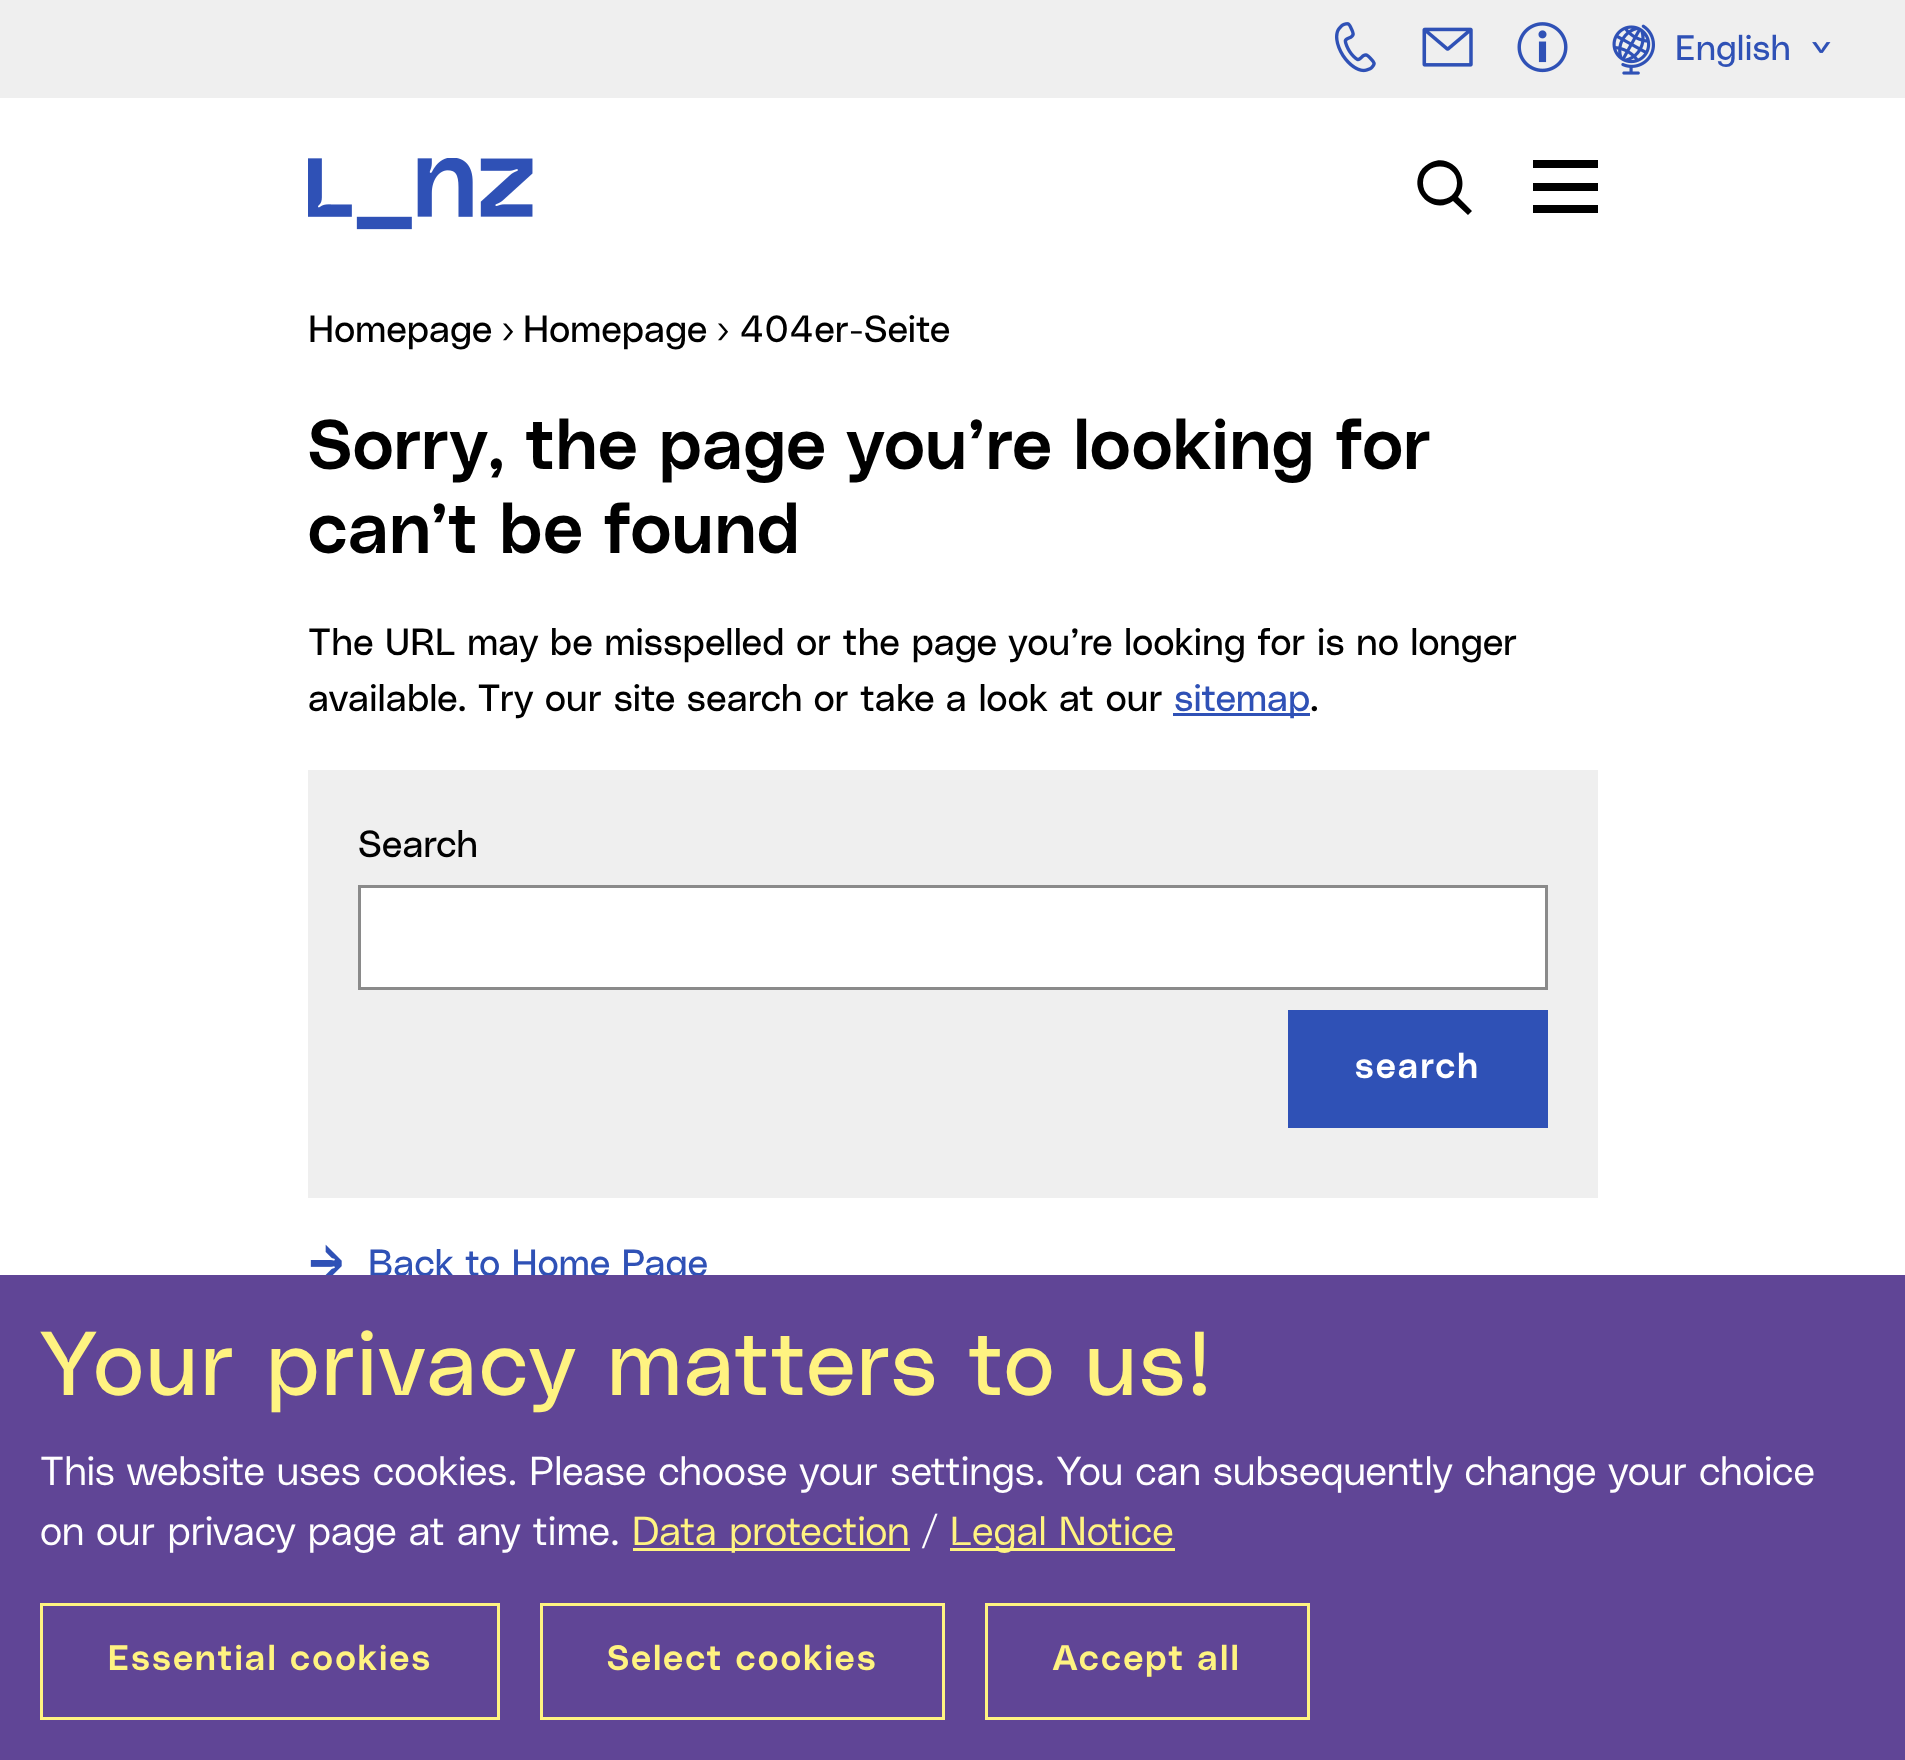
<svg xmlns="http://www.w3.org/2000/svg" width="1905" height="1760">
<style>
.a{font:35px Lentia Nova;fill:#2f51b6}
.b{font:37.5px Lentia Nova;fill:#000}
.c{font:600 70px Lentia Nova;letter-spacing:1.25px;fill:#000}
.d{font:37.5px Lentia Nova;fill:#2f51b6}
.e{font:600 35px Lentia Nova;letter-spacing:2.5px;fill:#fff}
.f{font:90px Lentia Nova;letter-spacing:1.9px;fill:#fff381}
.g{font:300 40px Lentia Nova;fill:#fff}
.h{font:300 40px Lentia Nova;fill:#fff381}
.i{font:600 35px Lentia Nova;letter-spacing:2.5px;fill:#fff381}
</style>
<rect width="100%" height="100%" fill="#fff"/>
<path fill="#efefef" d="M0 0h1905v98H0z"/>
<image href="1.png" x="1335" y="22" width="41" height="51"/>
<image href="2.png" x="1422" y="27" width="51" height="40"/>
<image href="3.png" x="1517" y="22" width="51" height="51"/>
<image href="4.png" x="1612" y="24" width="43" height="51"/>
<image href="5.png" x="1812" y="42" width="19" height="11"/>
<image href="6.png" x="308" y="158" width="225" height="72"/>
<path fill="#000" d="M1472 211l-14-14c8-10 5-26-6-33c-6-4-13-5-20-2c-5 2-9 5-12 10c-11 21 14 43 33 29l15 14zm-49-28c0-22 34-22 34 0c0 22-34 22-34 0z"/>
<path fill="#000" d="M1533 160h65v8H1533z"/>
<path fill="#000" d="M1533 183h65v8H1533z"/>
<path fill="#000" d="M1533 205h65v8H1533z"/>
<path fill="#2f51b6" d="M1173 713h137v3H1173z"/>
<path fill="#efefef" d="M308 770h1290v428H308z"/>
<path fill="#fff" stroke="#8a8a8a" stroke-width="3" d="M359.5 886.5h1187v102H359.5z"/>
<path fill="#2f51b6" d="M1288 1010h260v118H1288z"/>
<image href="7.png" x="310" y="1244" width="32" height="31"/>
<text class="a" x="1675" y="60">English</text>
<text class="b" x="308" y="342">Homepage</text>
<text class="b" x="501" y="342">›</text>
<text class="b" x="523" y="342">Homepage</text>
<text class="b" x="716" y="342">›</text>
<text class="b" x="739" y="342">404er-Seite</text>
<text class="c" x="308" y="469">Sorry, the page you’re looking for</text>
<text class="c" x="308" y="553">can’t be found</text>
<text class="b" x="308" y="655">The URL may be misspelled or the page you’re looking for is no longer</text>
<text class="b" x="308" y="711">available. Try our site search or take a look at our</text>
<text class="d" x="1174" y="711">sitemap</text>
<text class="b" x="1310" y="711">.</text>
<text class="b" x="358" y="857">Search</text>
<text class="e" x="1355" y="1078">search</text>
<text class="d" x="368" y="1276">Back to Home Page</text>
<path fill="#604596" d="M0 1275h1905v485H0z"/>
<text class="f" x="40" y="1395">Your privacy matters to us!</text>
<text class="g" x="40" y="1485">This website uses cookies. Please choose your settings. You can subsequently change your choice</text>
<text class="g" x="40" y="1545">on our privacy page at any time.</text>
<path fill="#fff381" d="M633 1548h277v3H633z"/>
<text class="h" x="632" y="1545">Data protection</text>
<text class="g" x="921" y="1545">/</text>
<path fill="#fff381" d="M950 1548h225v3H950z"/>
<text class="h" x="950" y="1545">Legal Notice</text>
<path fill="none" stroke="#fff381" stroke-width="3" d="M41.5 1604.5h457v114H41.5z"/>
<text class="i" x="108" y="1670">Essential cookies</text>
<path fill="none" stroke="#fff381" stroke-width="3" d="M541.5 1604.5h402v114H541.5z"/>
<text class="i" x="607" y="1670">Select cookies</text>
<path fill="none" stroke="#fff381" stroke-width="3" d="M986.5 1604.5h322v114H986.5z"/>
<text class="i" x="1053" y="1670">Accept all</text>
</svg>
